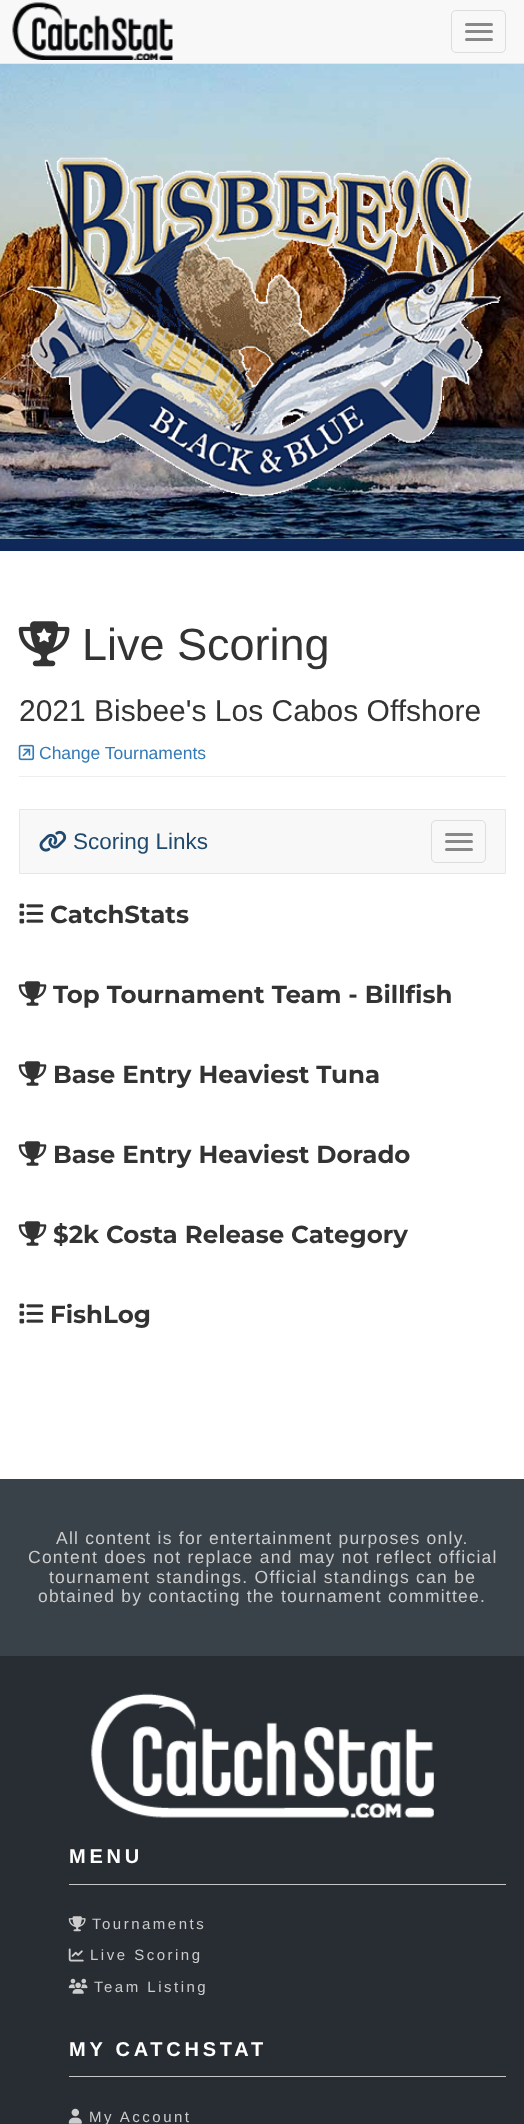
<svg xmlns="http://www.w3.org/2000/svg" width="524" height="2124">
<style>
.a{font:45px Liberation Sans;fill:#333}
.b{font:30px Liberation Sans;fill:#333}
.c{font:17.5px Liberation Sans;fill:#337ab7}
.d{font:22.5px Liberation Sans;fill:#1f496d}
.e{font:bold 24.5px Montserrat;fill:#333}
.f{font:17.5px Liberation Sans;letter-spacing:1.25px;fill:#ccc}
.g{font:bold 20px Liberation Sans;letter-spacing:3.75px;fill:#fff}
.h{font:15px Liberation Sans;letter-spacing:2.5px;fill:#ccc}
</style>
<rect width="100%" height="100%" fill="#fff"/>
<path fill="#f8f8f8" d="M0 0h524v63H0z"/>
<path fill="#e7e7e7" d="M0 63h524v1H0z"/>
<image href="1.png" x="12" y="2" width="161" height="58"/>
<rect fill="none" stroke="#ddd" x="451.5" y="10.5" width="54" height="42" rx="4.5"/>
<rect fill="#888" x="465" y="23" width="28" height="3" rx="1.5"/>
<rect fill="#888" x="465" y="30" width="28" height="3" rx="1.5"/>
<rect fill="#888" x="465" y="38" width="28" height="3" rx="1.5"/>
<image href="2.png" x="0" y="64" width="524" height="475"/>
<path fill="#0e2859" d="M0 539h524v12H0z"/>
<image href="3.png" x="27" y="157" width="497" height="340"/>
<path fill="#eee" d="M19 776h487v1H19z"/>
<image href="4.png" x="18" y="621" width="52" height="46"/>
<image href="5.png" x="18" y="744" width="17" height="17"/>
<path fill="#f8f8f8" stroke="#e7e7e7" d="M19.5 809.5h486v64H19.5z"/>
<image href="6.png" x="39" y="830" width="28" height="22"/>
<rect fill="none" stroke="#ddd" x="431.5" y="820.5" width="54" height="42" rx="4.5"/>
<rect fill="#888" x="445" y="833" width="28" height="3" rx="1.5"/>
<rect fill="#888" x="445" y="840" width="28" height="3" rx="1.5"/>
<rect fill="#888" x="445" y="848" width="28" height="3" rx="1.5"/>
<image href="7.png" x="19" y="903" width="25" height="21"/>
<image href="8.png" x="18" y="981" width="29" height="25"/>
<image href="9.png" x="18" y="1061" width="29" height="25"/>
<image href="9.png" x="18" y="1141" width="29" height="25"/>
<image href="9.png" x="18" y="1221" width="29" height="25"/>
<image href="7.png" x="19" y="1303" width="25" height="21"/>
<path fill="#3a4249" d="M0 1479h524v177H0z"/>
<path fill="#272d33" d="M0 1656h524v468H0z"/>
<image href="10.png" x="91" y="1693" width="343" height="125"/>
<path fill="#c7c7c7" d="M69 1884h437v1H69z"/>
<image href="11.png" x="68" y="1916" width="18" height="16"/>
<image href="12.png" x="68" y="1948" width="16" height="14"/>
<image href="13.png" x="68" y="1978" width="20" height="16"/>
<path fill="#c7c7c7" d="M69 2076h437v1H69z"/>
<image href="14.png" x="68" y="2108" width="14" height="16"/>
<text class="a" x="82" y="660">Live Scoring</text>
<text class="b" x="19" y="721">2021 Bisbee's Los Cabos Offshore</text>
<text class="c" x="39" y="759">Change Tournaments</text>
<text class="d" x="73" y="849">Scoring Links</text>
<text class="e" x="50" y="923">CatchStats</text>
<text class="e" x="53" y="1003">Top Tournament Team - Billfish</text>
<text class="e" x="53" y="1083">Base Entry Heaviest Tuna</text>
<text class="e" x="53" y="1163">Base Entry Heaviest Dorado</text>
<text class="e" x="53" y="1243">$2k Costa Release Category</text>
<text class="e" x="50" y="1323">FishLog</text>
<text class="f" x="56" y="1544">All content is for entertainment purposes only.</text>
<text class="f" x="28" y="1563">Content does not replace and may not reflect official</text>
<text class="f" x="49" y="1583">tournament standings. Official standings can be</text>
<text class="f" x="38" y="1602">obtained by contacting the tournament committee.</text>
<text class="g" x="69" y="1863">MENU</text>
<text class="h" x="92" y="1929">Tournaments</text>
<text class="h" x="90" y="1960">Live Scoring</text>
<text class="h" x="94" y="1992">Team Listing</text>
<text class="g" x="69" y="2056">MY CATCHSTAT</text>
<text class="h" x="89" y="2122">My Account</text>
</svg>
